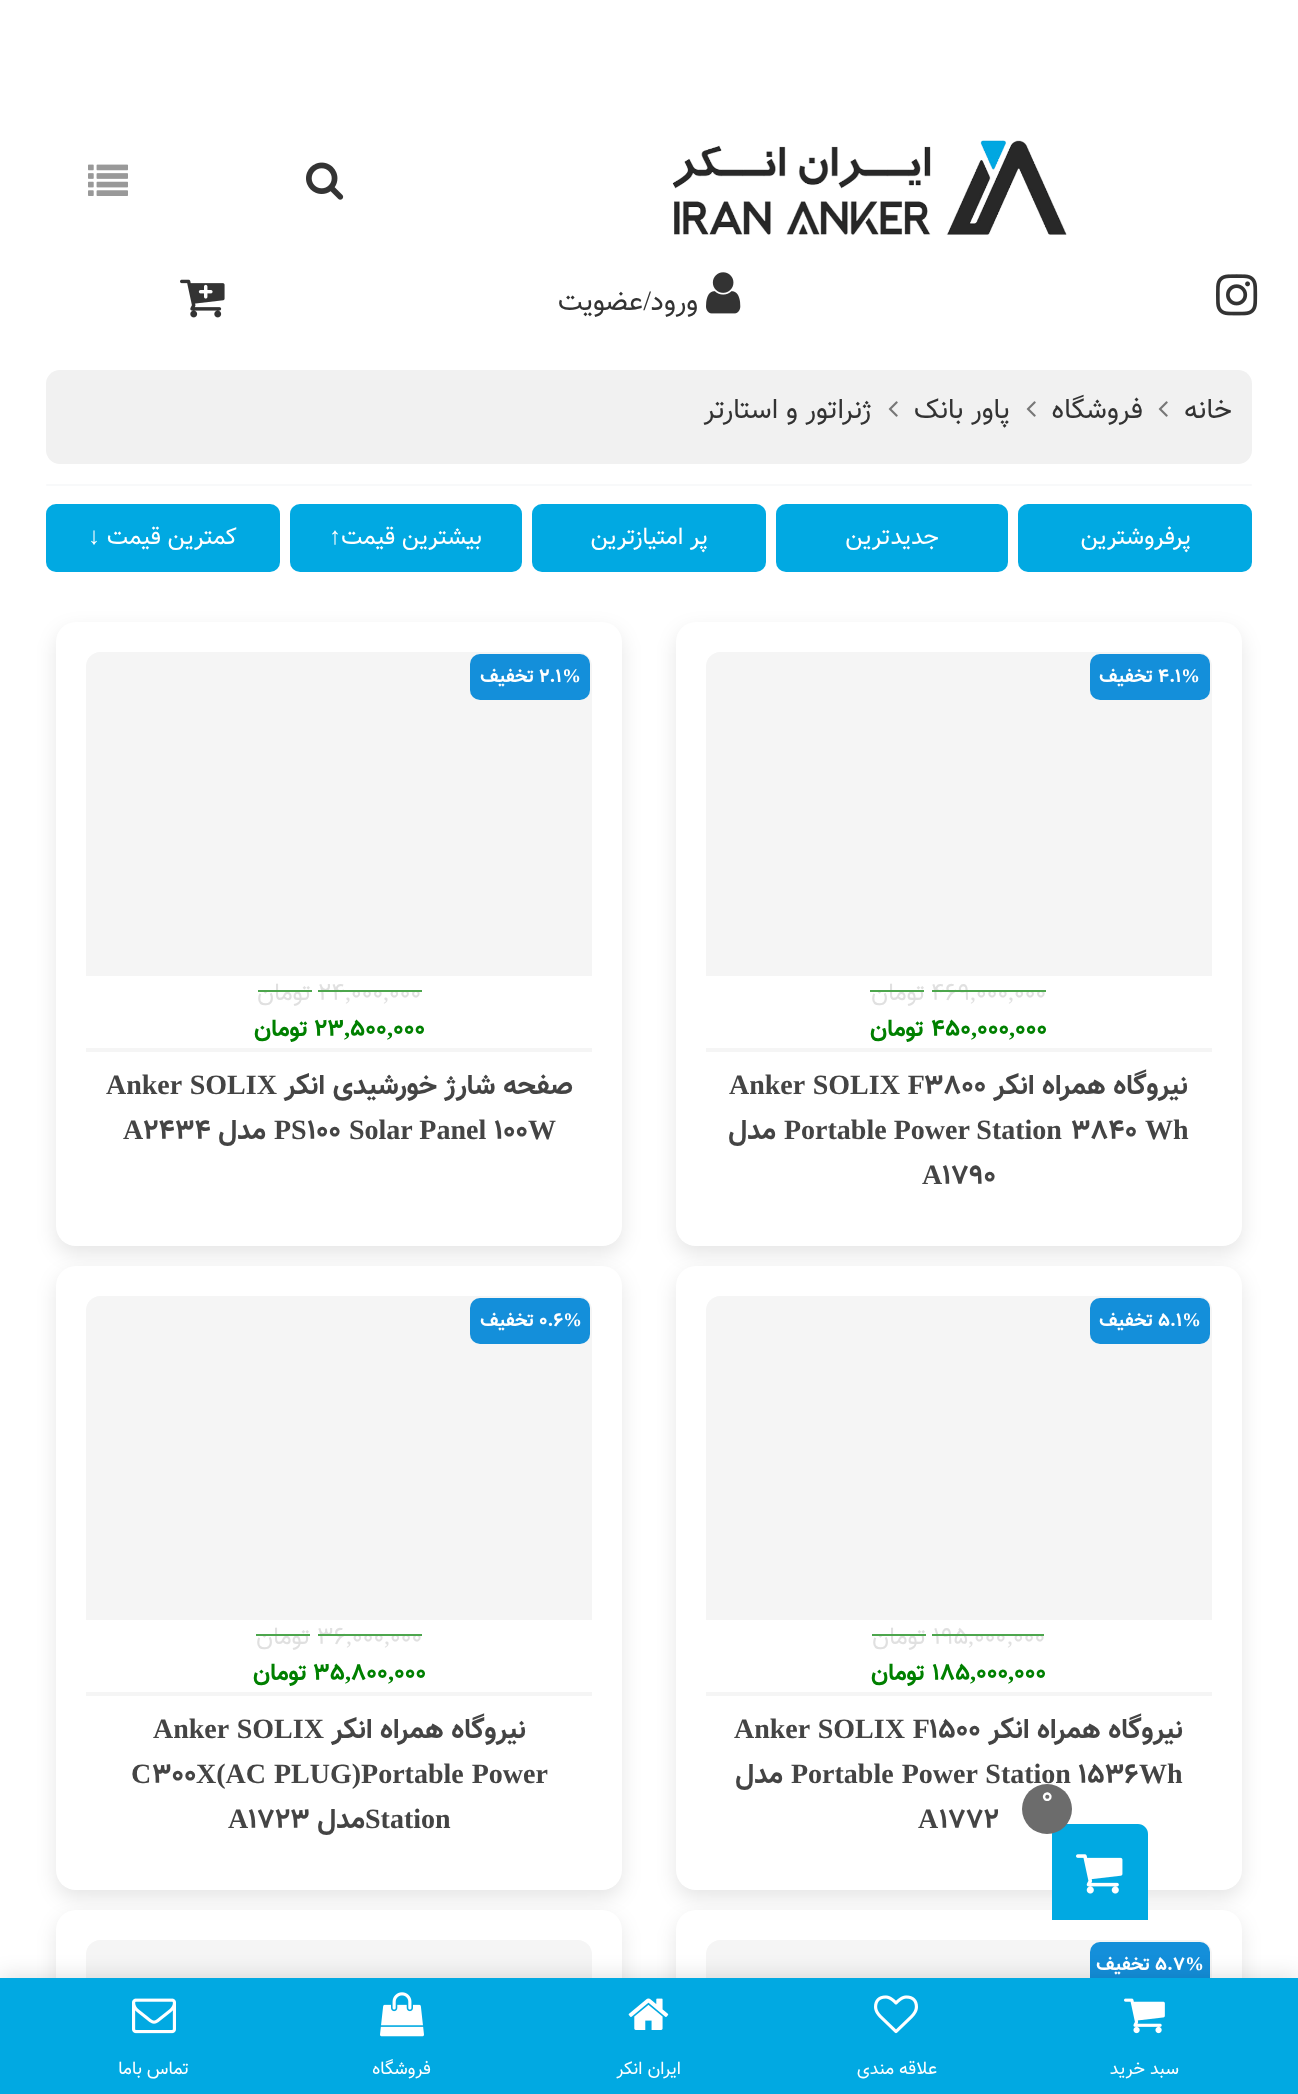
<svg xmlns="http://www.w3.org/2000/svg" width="1298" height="2094">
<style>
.a{font:28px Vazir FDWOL;direction:rtl;fill:#333}
.b{font:28px Liberation Serif;direction:rtl;fill:#333}
.c{font:18px Vazir FDWOL;direction:rtl;fill:#fff}
.d{font:24px Vazir FDWOL;direction:rtl;fill:#fff}
.e{font:24px Liberation Serif;direction:rtl;fill:#fff}
.f{font:bold 19px Liberation Serif;fill:#fff}
.g{font:bold 19px Vazir FDWOL;fill:#fff}
.h{font:bold 19px Vazir FDWOL;direction:rtl;fill:#fff}
.i{font:24px Vazir FDWOL;fill:#e0e0e0}
.j{font:24px Vazir FDWOL;direction:rtl;fill:#e0e0e0}
.k{font:24px Liberation Serif;fill:#e0e0e0}
.l{font:bold 24px Vazir FDWOL;fill:#008000}
.m{font:bold 24px Vazir FDWOL;direction:rtl;fill:#008000}
.n{font:bold 24px Liberation Serif;fill:#008000}
.o{font:bold 28px Vazir FDWOL;direction:rtl;fill:#444}
.p{font:bold 28px Vazir FDWOL;fill:#444}
.q{font:bold 28px Liberation Serif;fill:#444}
.r{font:28px Vazir FDWOL;fill:#fff}
</style>
<rect width="100%" height="100%" fill="#fff"/>
<image href="1.png" x="672" y="140" width="395" height="95"/>
<image href="2.png" x="306" y="162" width="38" height="38"/>
<image href="3.png" x="1216" y="274" width="42" height="42"/>
<image href="4.png" x="180" y="279" width="45" height="39"/>
<image href="5.png" x="706" y="272" width="35" height="42"/>
<image href="6.png" x="88" y="164" width="40" height="32"/>
<rect fill="#0000001a" filter="blur(10px)" x="676" y="630" width="566" height="624" rx="20"/>
<rect fill="#fff" x="676" y="622" width="566" height="624" rx="20"/>
<rect fill="#0000001a" filter="blur(10px)" x="676" y="1274" width="566" height="624" rx="20"/>
<rect fill="#fff" x="676" y="1266" width="566" height="624" rx="20"/>
<rect fill="#0000001a" filter="blur(10px)" x="676" y="1918" width="566" height="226" rx="20"/>
<rect fill="#fff" x="676" y="1910" width="566" height="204" rx="20"/>
<path fill="#f5f5f5" d="M720 1940h478c7.5 0 14 6.5 14 14v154h-506v-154c0-7.5 6.5-14 14-14z"/>
<rect fill="#148fda" x="1090" y="1942" width="120" height="46" rx="10"/>
<rect fill="#0000001a" filter="blur(10px)" x="56" y="630" width="566" height="624" rx="20"/>
<rect fill="#fff" x="56" y="622" width="566" height="624" rx="20"/>
<rect fill="#0000001a" filter="blur(10px)" x="56" y="1274" width="566" height="624" rx="20"/>
<rect fill="#fff" x="56" y="1266" width="566" height="624" rx="20"/>
<rect fill="#0000001a" filter="blur(10px)" x="56" y="1918" width="566" height="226" rx="20"/>
<rect fill="#fff" x="56" y="1910" width="566" height="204" rx="20"/>
<path fill="#f5f5f5" d="M100 1940h478c7.5 0 14 6.5 14 14v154h-506v-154c0-7.5 6.5-14 14-14z"/>
<path fill="#0000001a" filter="blur(10px)" d="M0 1974h1298v116H0z"/>
<path fill="#01a9e2" d="M0 1978h1298v116H0z"/>
<image href="7.png" x="1124" y="1998" width="41" height="36"/>
<image href="8.png" x="874" y="1995" width="44" height="39"/>
<image href="9.png" x="628" y="1998" width="41" height="32"/>
<image href="10.png" x="380" y="1992" width="44" height="45"/>
<image href="11.png" x="132" y="1998" width="44" height="36"/>
<rect fill="#f1f1f1" x="46" y="370" width="1206" height="94" rx="14"/>
<image href="12.png" x="1158" y="401" width="10" height="16"/>
<image href="12.png" x="1026" y="401" width="10" height="16"/>
<image href="12.png" x="888" y="401" width="10" height="16"/>
<rect fill="#f8f9fa" x="46" y="484" width="1206" height="2" rx="1"/>
<rect fill="#01a9e2" x="1018" y="504" width="234" height="68" rx="10"/>
<rect fill="#01a9e2" x="776" y="504" width="232" height="68" rx="10"/>
<rect fill="#01a9e2" x="532" y="504" width="234" height="68" rx="10"/>
<rect fill="#01a9e2" x="290" y="504" width="232" height="68" rx="10"/>
<rect fill="#01a9e2" x="46" y="504" width="234" height="68" rx="10"/>
<path fill="#f5f5f5" d="M720 652h478c7.5 0 14 6.5 14 14v386h-506v-386c0-7.5 6.5-14 14-14z"/>
<rect fill="#148fda" x="1090" y="654" width="120" height="46" rx="10"/>
<path fill="#fff" d="M706 976h506v72H706z"/>
<path fill="#f5f5f5" d="M100 652h478c7.5 0 14 6.5 14 14v386h-506v-386c0-7.5 6.5-14 14-14z"/>
<rect fill="#148fda" x="470" y="654" width="120" height="46" rx="10"/>
<path fill="#fff" d="M86 976h506v72H86z"/>
<path fill="#f5f5f5" d="M720 1296h478c7.5 0 14 6.5 14 14v386h-506v-386c0-7.5 6.5-14 14-14z"/>
<rect fill="#148fda" x="1090" y="1298" width="120" height="46" rx="10"/>
<path fill="#fff" d="M706 1620h506v72H706z"/>
<path fill="#f5f5f5" d="M100 1296h478c7.5 0 14 6.5 14 14v386h-506v-386c0-7.5 6.5-14 14-14z"/>
<rect fill="#148fda" x="470" y="1298" width="120" height="46" rx="10"/>
<path fill="#fff" d="M86 1620h506v72H86z"/>
<path fill="#01a9e2" d="M1062 1824h76c5.5 0 10 4.5 10 10v86h-96v-86c0-5.5 4.5-10 10-10z"/>
<circle fill="#6c6c6c" cx="1047" cy="1809" r="25"/>
<image href="13.png" x="1076" y="1854" width="47" height="40"/>
<text class="a" x="698" y="310">ورود</text>
<text class="b" x="651" y="310">/</text>
<text class="a" x="643" y="310">عضویت</text>
<text class="c" x="1179" y="2074">سبد خرید</text>
<text class="c" x="937" y="2074">علاقه مندی</text>
<text class="c" x="681" y="2074">ایران انکر</text>
<text class="c" x="431" y="2074">فروشگاه</text>
<text class="c" x="189" y="2074">تماس باما</text>
<text class="a" x="1232" y="418">خانه</text>
<text class="a" x="1143" y="418">فروشگاه</text>
<text class="a" x="1010" y="418">پاور بانک</text>
<text class="a" x="872" y="418">ژنراتور و استارتر</text>
<text class="d" x="1191" y="544">پرفروشترین</text>
<text class="d" x="939" y="544">جدیدترین</text>
<text class="d" x="708" y="544">پر امتیازترین</text>
<text class="d" x="482" y="544">بیشترین قیمت</text>
<text class="e" x="341" y="544">↑</text>
<text class="d" x="237" y="544">کمترین قیمت</text>
<text class="e" x="100" y="544">↓</text>
<text class="f" x="1181" y="682">%</text>
<text class="g" x="1158" y="682">4.1</text>
<text class="h" x="1153" y="682">تخفیف</text>
<text class="i" x="1014" y="1000">000</text>
<text class="i" x="976" y="1000">000</text>
<text class="i" x="931" y="1000">469</text>
<path fill="#4da64d" d="M932 990h114v2H932z"/>
<text class="j" x="925" y="1000">تومان</text>
<path fill="#4da64d" d="M870 990h54v2H870z"/>
<text class="k" x="1008" y="1000">,</text>
<text class="k" x="970" y="1000">,</text>
<text class="l" x="1015" y="1036">000</text>
<text class="l" x="977" y="1036">000</text>
<text class="l" x="931" y="1036">450</text>
<text class="m" x="924" y="1036">تومان</text>
<text class="n" x="1009" y="1036">,</text>
<text class="n" x="971" y="1036">,</text>
<text class="o" x="1188" y="1094">نیروگاه همراه انکر</text>
<text class="p" x="924" y="1094">3800</text>
<text class="q" x="729" y="1094" word-spacing="1">Anker SOLIX F</text>
<text class="q" x="1145" y="1139">Wh</text>
<text class="p" x="1071" y="1139">3840</text>
<text class="q" x="784" y="1139">Portable Power Station</text>
<text class="o" x="776" y="1139">مدل</text>
<text class="p" x="942" y="1184">1790</text>
<text class="q" x="922" y="1184">A</text>
<text class="f" x="562" y="682">%</text>
<text class="g" x="539" y="682">2.1</text>
<text class="h" x="534" y="682">تخفیف</text>
<text class="i" x="389" y="1000">000</text>
<text class="i" x="351" y="1000">000</text>
<text class="i" x="318" y="1000">24</text>
<path fill="#4da64d" d="M318 990h104v2H318z"/>
<text class="j" x="311" y="1000">تومان</text>
<path fill="#4da64d" d="M258 990h54v2H258z"/>
<text class="k" x="383" y="1000">,</text>
<text class="k" x="345" y="1000">,</text>
<text class="l" x="393" y="1036">000</text>
<text class="l" x="350" y="1036">500</text>
<text class="l" x="314" y="1036">23</text>
<text class="m" x="308" y="1036">تومان</text>
<text class="n" x="387" y="1036">,</text>
<text class="n" x="344" y="1036">,</text>
<text class="o" x="573" y="1094">صفحه شارژ خورشیدی انکر</text>
<text class="q" x="106" y="1094" word-spacing="1">Anker SOLIX</text>
<text class="q" x="528" y="1139">W</text>
<text class="p" x="494" y="1139">100</text>
<text class="q" x="349" y="1139">Solar Panel</text>
<text class="p" x="307" y="1139">100</text>
<text class="q" x="274" y="1139">PS</text>
<text class="o" x="266" y="1139">مدل</text>
<text class="p" x="143" y="1139">2434</text>
<text class="q" x="123" y="1139">A</text>
<text class="f" x="1182" y="1326">%</text>
<text class="g" x="1158" y="1326">5.1</text>
<text class="h" x="1153" y="1326">تخفیف</text>
<text class="i" x="1013" y="1644">000</text>
<text class="i" x="974" y="1644">000</text>
<text class="i" x="933" y="1644">195</text>
<path fill="#4da64d" d="M932 1634h112v2H932z"/>
<text class="j" x="926" y="1644">تومان</text>
<path fill="#4da64d" d="M872 1634h54v2H872z"/>
<text class="k" x="1007" y="1644">,</text>
<text class="k" x="968" y="1644">,</text>
<text class="l" x="1014" y="1680">000</text>
<text class="l" x="976" y="1680">000</text>
<text class="l" x="932" y="1680">185</text>
<text class="m" x="925" y="1680">تومان</text>
<text class="n" x="1008" y="1680">,</text>
<text class="n" x="970" y="1680">,</text>
<text class="o" x="1183" y="1738">نیروگاه همراه انکر</text>
<text class="p" x="929" y="1738">1500</text>
<text class="q" x="734" y="1738" word-spacing="1">Anker SOLIX F</text>
<text class="q" x="1139" y="1783">Wh</text>
<text class="p" x="1078" y="1783">1536</text>
<text class="q" x="791" y="1783" word-spacing="1">Portable Power Station</text>
<text class="o" x="783" y="1783">مدل</text>
<text class="p" x="939" y="1828">1772</text>
<text class="q" x="918" y="1828">A</text>
<text class="f" x="563" y="1326">%</text>
<text class="g" x="539" y="1326">0.6</text>
<text class="h" x="534" y="1326">تخفیف</text>
<text class="i" x="390" y="1644">000</text>
<text class="i" x="352" y="1644">000</text>
<text class="i" x="317" y="1644">36</text>
<path fill="#4da64d" d="M318 1634h104v2H318z"/>
<text class="j" x="310" y="1644">تومان</text>
<path fill="#4da64d" d="M256 1634h54v2H256z"/>
<text class="k" x="384" y="1644">,</text>
<text class="k" x="346" y="1644">,</text>
<text class="l" x="394" y="1680">000</text>
<text class="l" x="351" y="1680">800</text>
<text class="l" x="313" y="1680">35</text>
<text class="m" x="307" y="1680">تومان</text>
<text class="n" x="388" y="1680">,</text>
<text class="n" x="345" y="1680">,</text>
<text class="o" x="526" y="1738">نیروگاه همراه انکر</text>
<text class="q" x="153" y="1738" word-spacing="1">Anker SOLIX</text>
<text class="q" x="196" y="1783" word-spacing="1">X(AC PLUG)Portable Power</text>
<text class="p" x="152" y="1783">300</text>
<text class="q" x="131" y="1783">C</text>
<text class="q" x="365" y="1828">Station</text>
<text class="o" x="365" y="1828">مدل</text>
<text class="p" x="248" y="1828">1723</text>
<text class="q" x="228" y="1828">A</text>
<text class="f" x="1185" y="1970">%</text>
<text class="g" x="1155" y="1970">5.7</text>
<text class="h" x="1150" y="1970">تخفیف</text>
<text class="r" x="1041" y="1804">0</text>
</svg>
